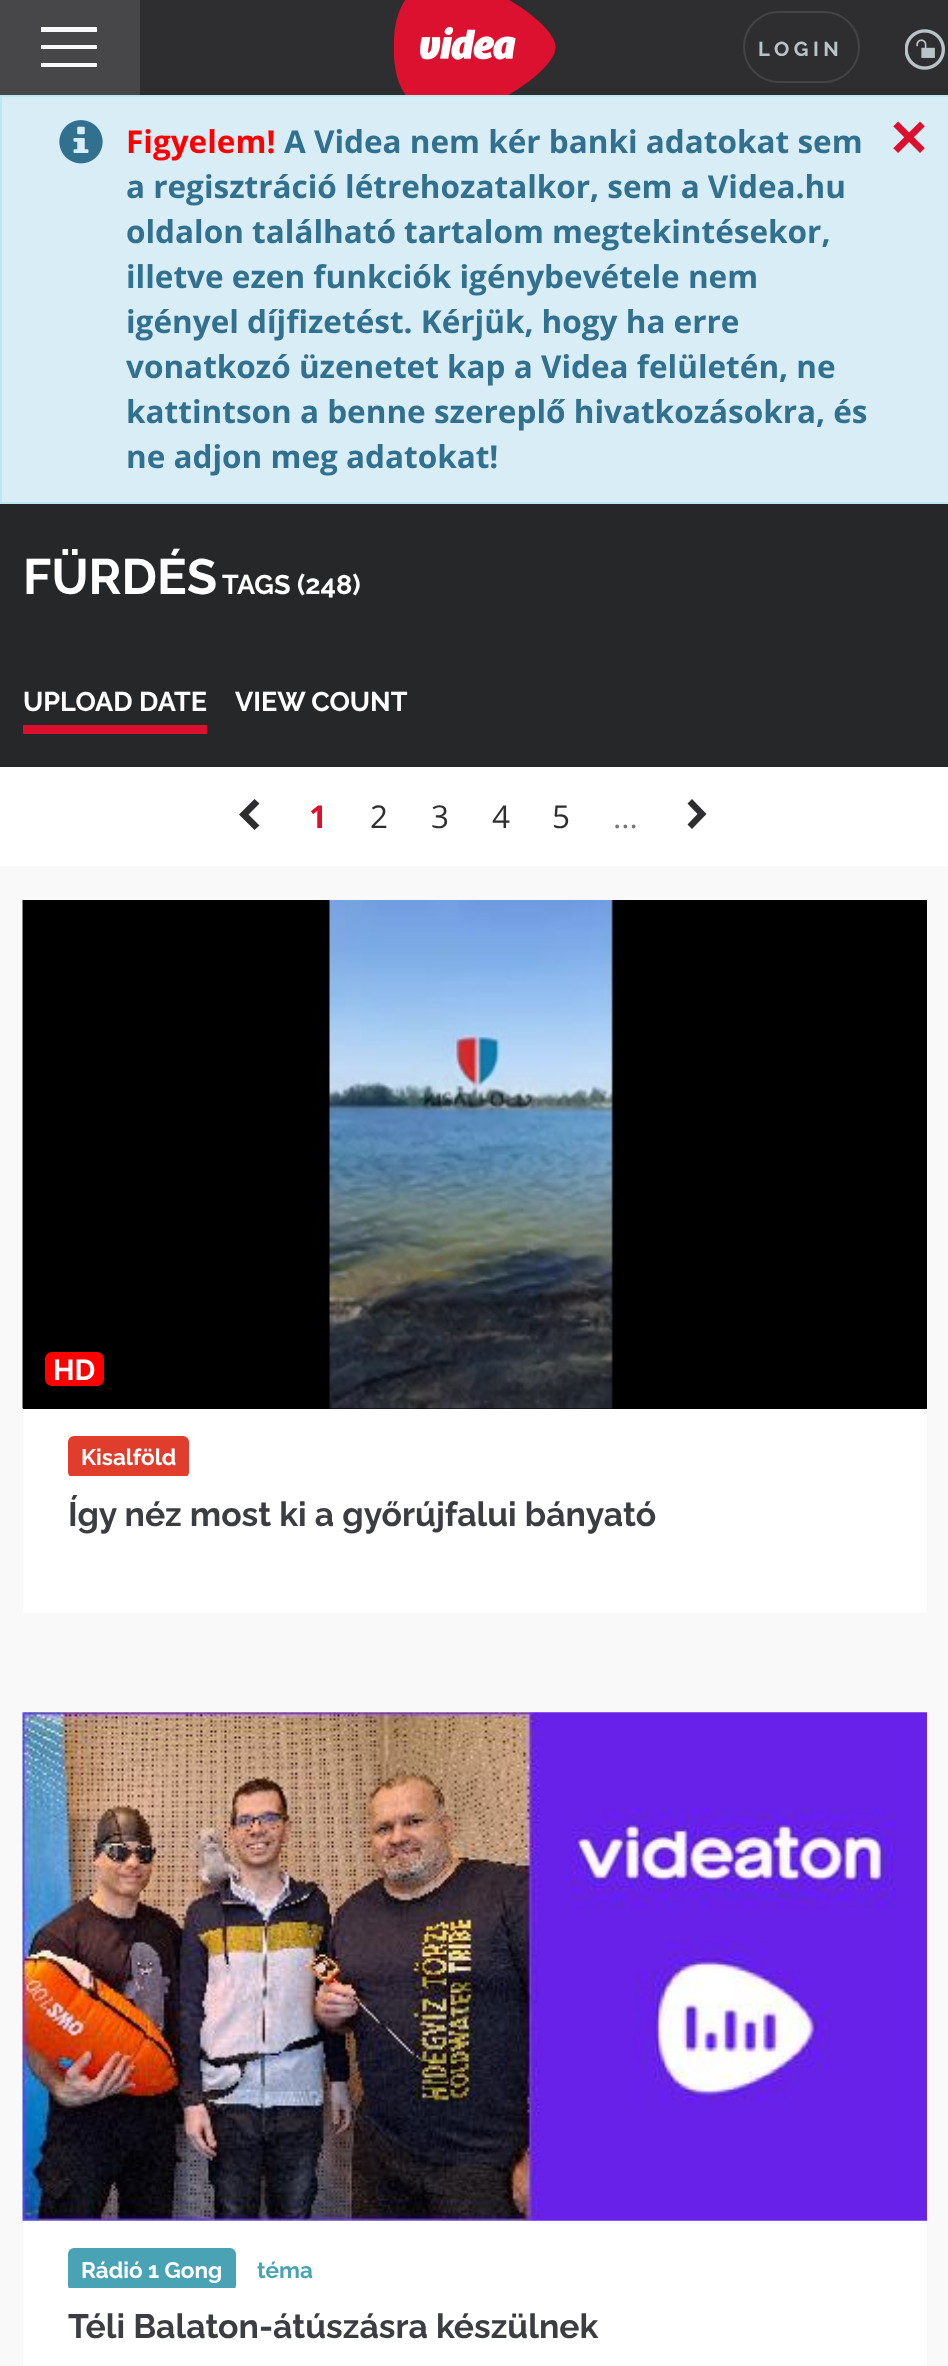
<svg xmlns="http://www.w3.org/2000/svg" width="948" height="2366">
<style>
.a{font:bold 20.25px Raleway;letter-spacing:4.5px;fill:#b8c5c6}
.b{font:bold 31.5px Open Sans;fill:#f00}
.c{font:bold 31.5px Open Sans;fill:#31708f}
.d{font:bold 49.5px Raleway;fill:#fff}
.e{font:bold 27px Raleway;fill:#fff}
.f{font:bold 31.5px Open Sans;fill:#dc102e}
.g{font:31.5px Open Sans;fill:#2e2e30}
.h{font:31.5px Open Sans;fill:#777}
.i{font:bold 29px Raleway;fill:#fff}
.j{font:bold 22.5px Raleway;fill:#fff}
.k{font:bold 33.75px Raleway;fill:#3b3d40}
.l{font:bold 22.5px Raleway;fill:#4aa3b4}
</style>
<defs>
<clipPath id="clip1"><path d="M41 27h56v41H41z"/></clipPath>
<clipPath id="clip2"><path d="M68 1431h121v45H68z"/></clipPath>
<clipPath id="clip3"><path d="M68 2243h258v45H68z"/></clipPath>
</defs>
<rect width="100%" height="100%" fill="#fff"/>
<path fill="#2e2e30" d="M140 0h808v95H140z"/>
<image href="1.png" x="394" y="0" width="162" height="95"/>
<path fill="#47474a" d="M0 0h140v95H0z"/>
<g clip-path="url(#clip1)">
<path fill="#f9f9f9" d="M40 63v4h57v-4zm0-18v4h57v-4zm0-18v5h57v-5z"/>
</g>
<rect fill="none" stroke="#444" stroke-width="2" x="744" y="12" width="115" height="70" rx="35"/>
<image href="2.png" x="905" y="29" width="40" height="41"/>
<path fill="#d9edf7" stroke="#bce8f1" stroke-width="2" d="M1 96h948v407H1z"/>
<image href="3.png" x="59" y="120" width="44" height="44"/>
<image href="4.png" x="893" y="121" width="32" height="32"/>
<path fill="#262729" d="M0 504h948v263H0z"/>
<path fill="#dc102e" d="M23 725h184v9H23z"/>
<path fill="#2e2e30" d="M248.5 814.5l11 11l-5 4.5l-15.5-15.5l15.5-15.5l5 4.5z"/>
<path fill="#2e2e30" d="M697.5 814l-10 10.5l4.5 4.5l14.5-15l-14.5-15l-4.5 4.5z"/>
<path fill="#f9f9f9" d="M0 866h948v1500H0z"/>
<path fill="#fff" d="M23 1409h904v204H23z"/>
<path fill="#000" d="M23 900h904v509H23z"/>
<image href="5.png" x="22" y="900" width="594" height="509"/>
<rect fill="#f00" stroke="#f00" stroke-width="2" x="46" y="1353" width="57" height="32" rx="6"/>
<g clip-path="url(#clip2)">
<rect fill="#e03d2c" x="68" y="1436" width="121" height="42" rx="6"/>
</g>
<path fill="#fff" d="M23 1712h904v654H23z"/>
<image href="6.png" x="22" y="1712" width="905" height="509"/>
<g clip-path="url(#clip3)">
<rect fill="#4aa3b4" x="68" y="2248" width="168" height="43" rx="6"/>
</g>
<text class="a" x="758" y="56">LOGIN</text>
<text class="b" x="126" y="153">Figyelem!</text>
<text class="c" x="284" y="153">A Videa nem kér banki adatokat sem</text>
<text class="c" x="126" y="198">a regisztráció létrehozatalkor, sem a Videa.hu</text>
<text class="c" x="126" y="243">oldalon található tartalom megtekintésekor,</text>
<text class="c" x="126" y="288">illetve ezen funkciók igénybevétele nem</text>
<text class="c" x="126" y="333">igényel díjfizetést. Kérjük, hogy ha erre</text>
<text class="c" x="126" y="378">vonatkozó üzenetet kap a Videa felületén, ne</text>
<text class="c" x="126" y="423">kattintson a benne szereplő hivatkozásokra, és</text>
<text class="c" x="126" y="468">ne adjon meg adatokat!</text>
<text class="d" x="23" y="594">FÜRDÉS</text>
<text class="e" x="222" y="594">TAGS (248)</text>
<text class="e" x="23" y="711">UPLOAD DATE</text>
<text class="e" x="235" y="711">VIEW COUNT</text>
<text class="f" x="309" y="828">1</text>
<text class="g" x="370" y="828">2</text>
<text class="g" x="431" y="828">3</text>
<text class="g" x="492" y="828">4</text>
<text class="g" x="552" y="828">5</text>
<text class="h" x="613" y="828">...</text>
<text class="i" x="53" y="1380">HD</text>
<text class="j" x="81" y="1465">Kisalföld</text>
<text class="k" x="68" y="1526">Így néz most ki a győrújfalui bányató</text>
<text class="j" x="81" y="2278">Rádió 1 Gong</text>
<text class="l" x="257" y="2278">téma</text>
<text class="k" x="68" y="2338">Téli Balaton-átúszásra készülnek</text>
</svg>
